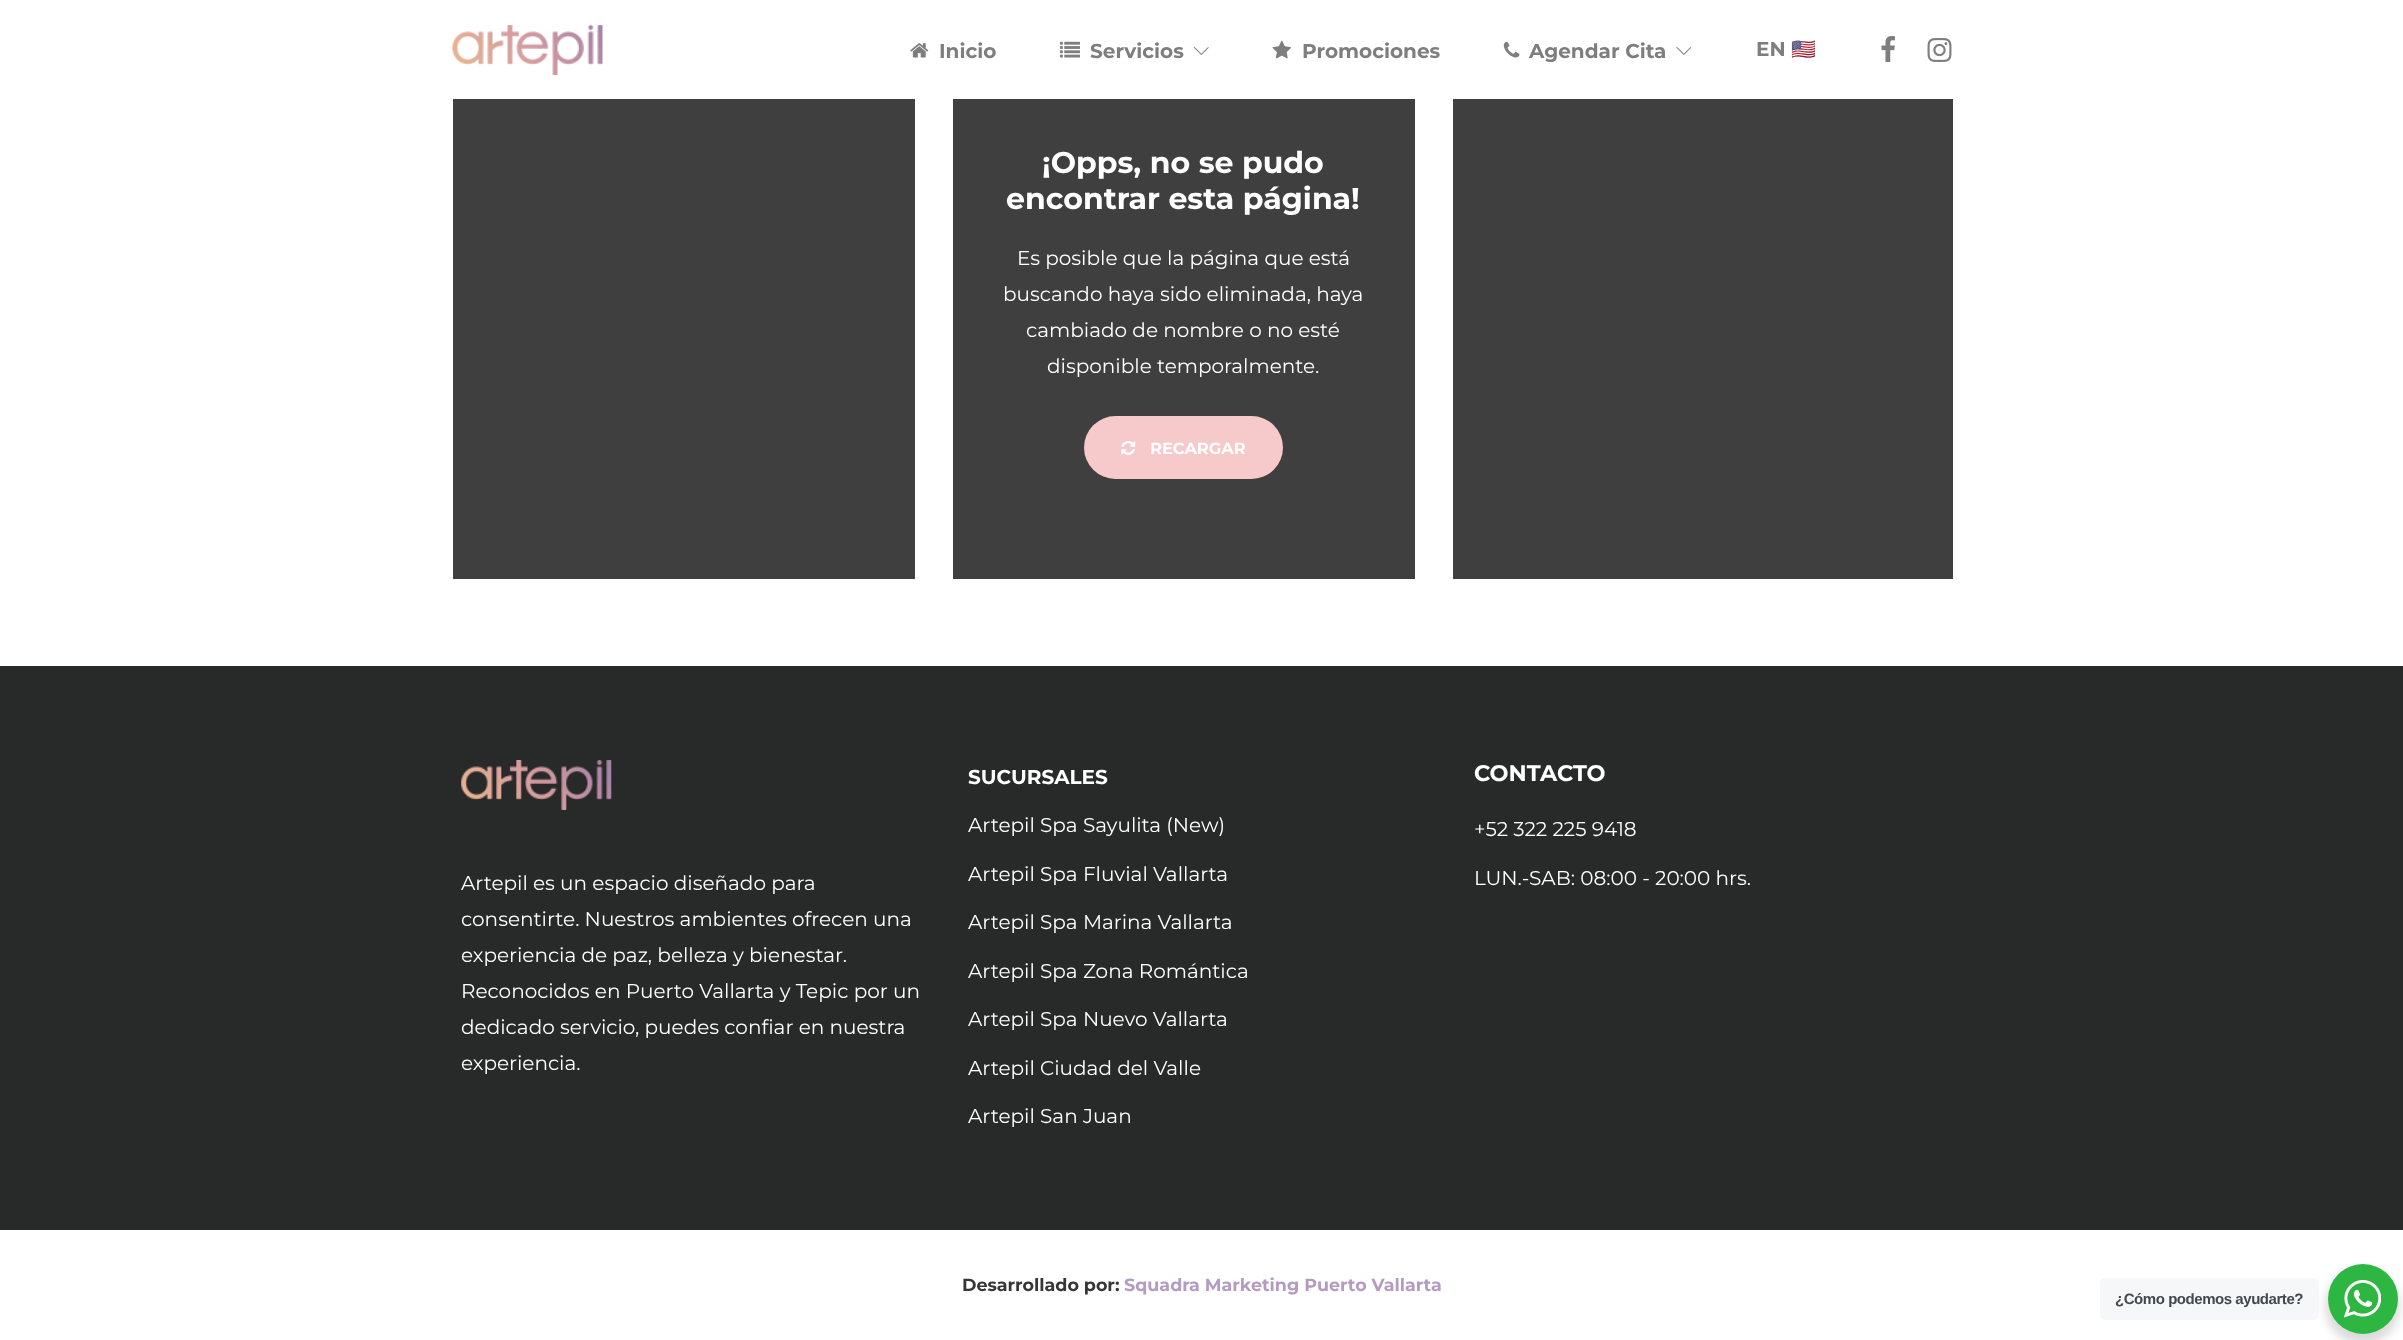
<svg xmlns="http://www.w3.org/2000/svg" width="2403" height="1340">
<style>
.a{font:bold 20px Montserrat;fill:#7e7e7e}
.b{font:bold 20px Noto Color Emoji;fill:#7e7e7e}
.c{font:bold 30px Montserrat;fill:#fff}
.d{font:20px Montserrat;fill:#fff}
.e{font:bold 16.25px Montserrat;fill:#fff}
.f{font:bold 20px Montserrat;fill:#fff}
.g{font:bold 22.5px Montserrat;fill:#fff}
.h{font:bold 17.5px Montserrat;fill:#363636}
.i{font:bold 17.5px Montserrat;fill:#b59ac1}
.j{font:bold 15px Liberation Sans;letter-spacing:-0.45px;fill:#43474e}
</style>
<rect width="100%" height="100%" fill="#fff"/>
<image href="1.png" x="452" y="24" width="151" height="51"/>
<image href="2.png" x="910" y="43" width="19" height="15"/>
<image href="3.png" x="1060" y="41" width="20" height="17"/>
<image href="4.png" x="1193" y="47" width="16" height="8"/>
<image href="5.png" x="1272" y="40" width="19" height="19"/>
<image href="6.png" x="1503" y="41" width="17" height="17"/>
<image href="7.png" x="1676" y="47" width="16" height="8"/>
<image href="8.png" x="1881" y="36" width="14" height="26"/>
<image href="9.png" x="1927" y="38" width="25" height="24"/>
<path fill="#3f3f3f" d="M453 99h1500v480H453z"/>
<path fill="#fff" d="M915 99h38v480H915z"/>
<path fill="#fff" d="M1415 99h38v480H1415z"/>
<rect fill="#f6caca" x="1084" y="416" width="199" height="63" rx="31.5"/>
<image href="10.png" x="1121" y="441" width="15" height="14"/>
<path fill="#282929" d="M0 666h2403v564H0z"/>
<image href="11.png" x="461" y="760" width="151" height="50"/>
<rect fill="#00000024" filter="blur(5px)" x="2325" y="1269" width="75" height="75" rx="37.5"/>
<rect fill="#f5f7f9" x="2100" y="1278" width="219" height="42" rx="5"/>
<circle fill="#2db742" cx="2363" cy="1299" r="35"/>
<image href="12.png" x="2344" y="1280" width="37" height="38"/>
<text class="a" x="939" y="58">Inicio</text>
<text class="a" x="1090" y="58">Servicios</text>
<text class="a" x="1302" y="58">Promociones</text>
<text class="a" x="1529" y="58">Agendar Cita</text>
<text class="a" x="1756" y="56">EN</text>
<text class="b" x="1791" y="56">🇺🇸</text>
<text class="c" x="1042" y="173">¡Opps, no se pudo</text>
<text class="c" x="1006" y="209">encontrar esta página!</text>
<text class="d" x="1017" y="265">Es posible que la página que está</text>
<text class="d" x="1003" y="301">buscando haya sido eliminada, haya</text>
<text class="d" x="1026" y="337">cambiado de nombre o no esté</text>
<text class="d" x="1047" y="373">disponible temporalmente.</text>
<text class="e" x="1150" y="454">RECARGAR</text>
<text class="d" x="461" y="890">Artepil es un espacio diseñado para</text>
<text class="d" x="461" y="926">consentirte. Nuestros ambientes ofrecen una</text>
<text class="d" x="461" y="962">experiencia de paz, belleza y bienestar.</text>
<text class="d" x="461" y="998">Reconocidos en Puerto Vallarta y Tepic por un</text>
<text class="d" x="461" y="1034">dedicado servicio, puedes confiar en nuestra</text>
<text class="d" x="461" y="1070">experiencia.</text>
<text class="f" x="968" y="784">SUCURSALES</text>
<text class="d" x="968" y="832">Artepil Spa Sayulita (New)</text>
<text class="d" x="968" y="881">Artepil Spa Fluvial Vallarta</text>
<text class="d" x="968" y="929">Artepil Spa Marina Vallarta</text>
<text class="d" x="968" y="978">Artepil Spa Zona Romántica</text>
<text class="d" x="968" y="1026">Artepil Spa Nuevo Vallarta</text>
<text class="d" x="968" y="1075">Artepil Ciudad del Valle</text>
<text class="d" x="968" y="1123">Artepil San Juan</text>
<text class="g" x="1474" y="781">CONTACTO</text>
<text class="d" x="1474" y="836">+52 322 225 9418</text>
<text class="d" x="1474" y="885">LUN.-SAB: 08:00 - 20:00 hrs.</text>
<text class="h" x="962" y="1291">Desarrollado por:</text>
<text class="i" x="1124" y="1291">Squadra Marketing Puerto Vallarta</text>
<text class="j" x="2115" y="1304">¿Cómo podemos ayudarte?</text>
</svg>
